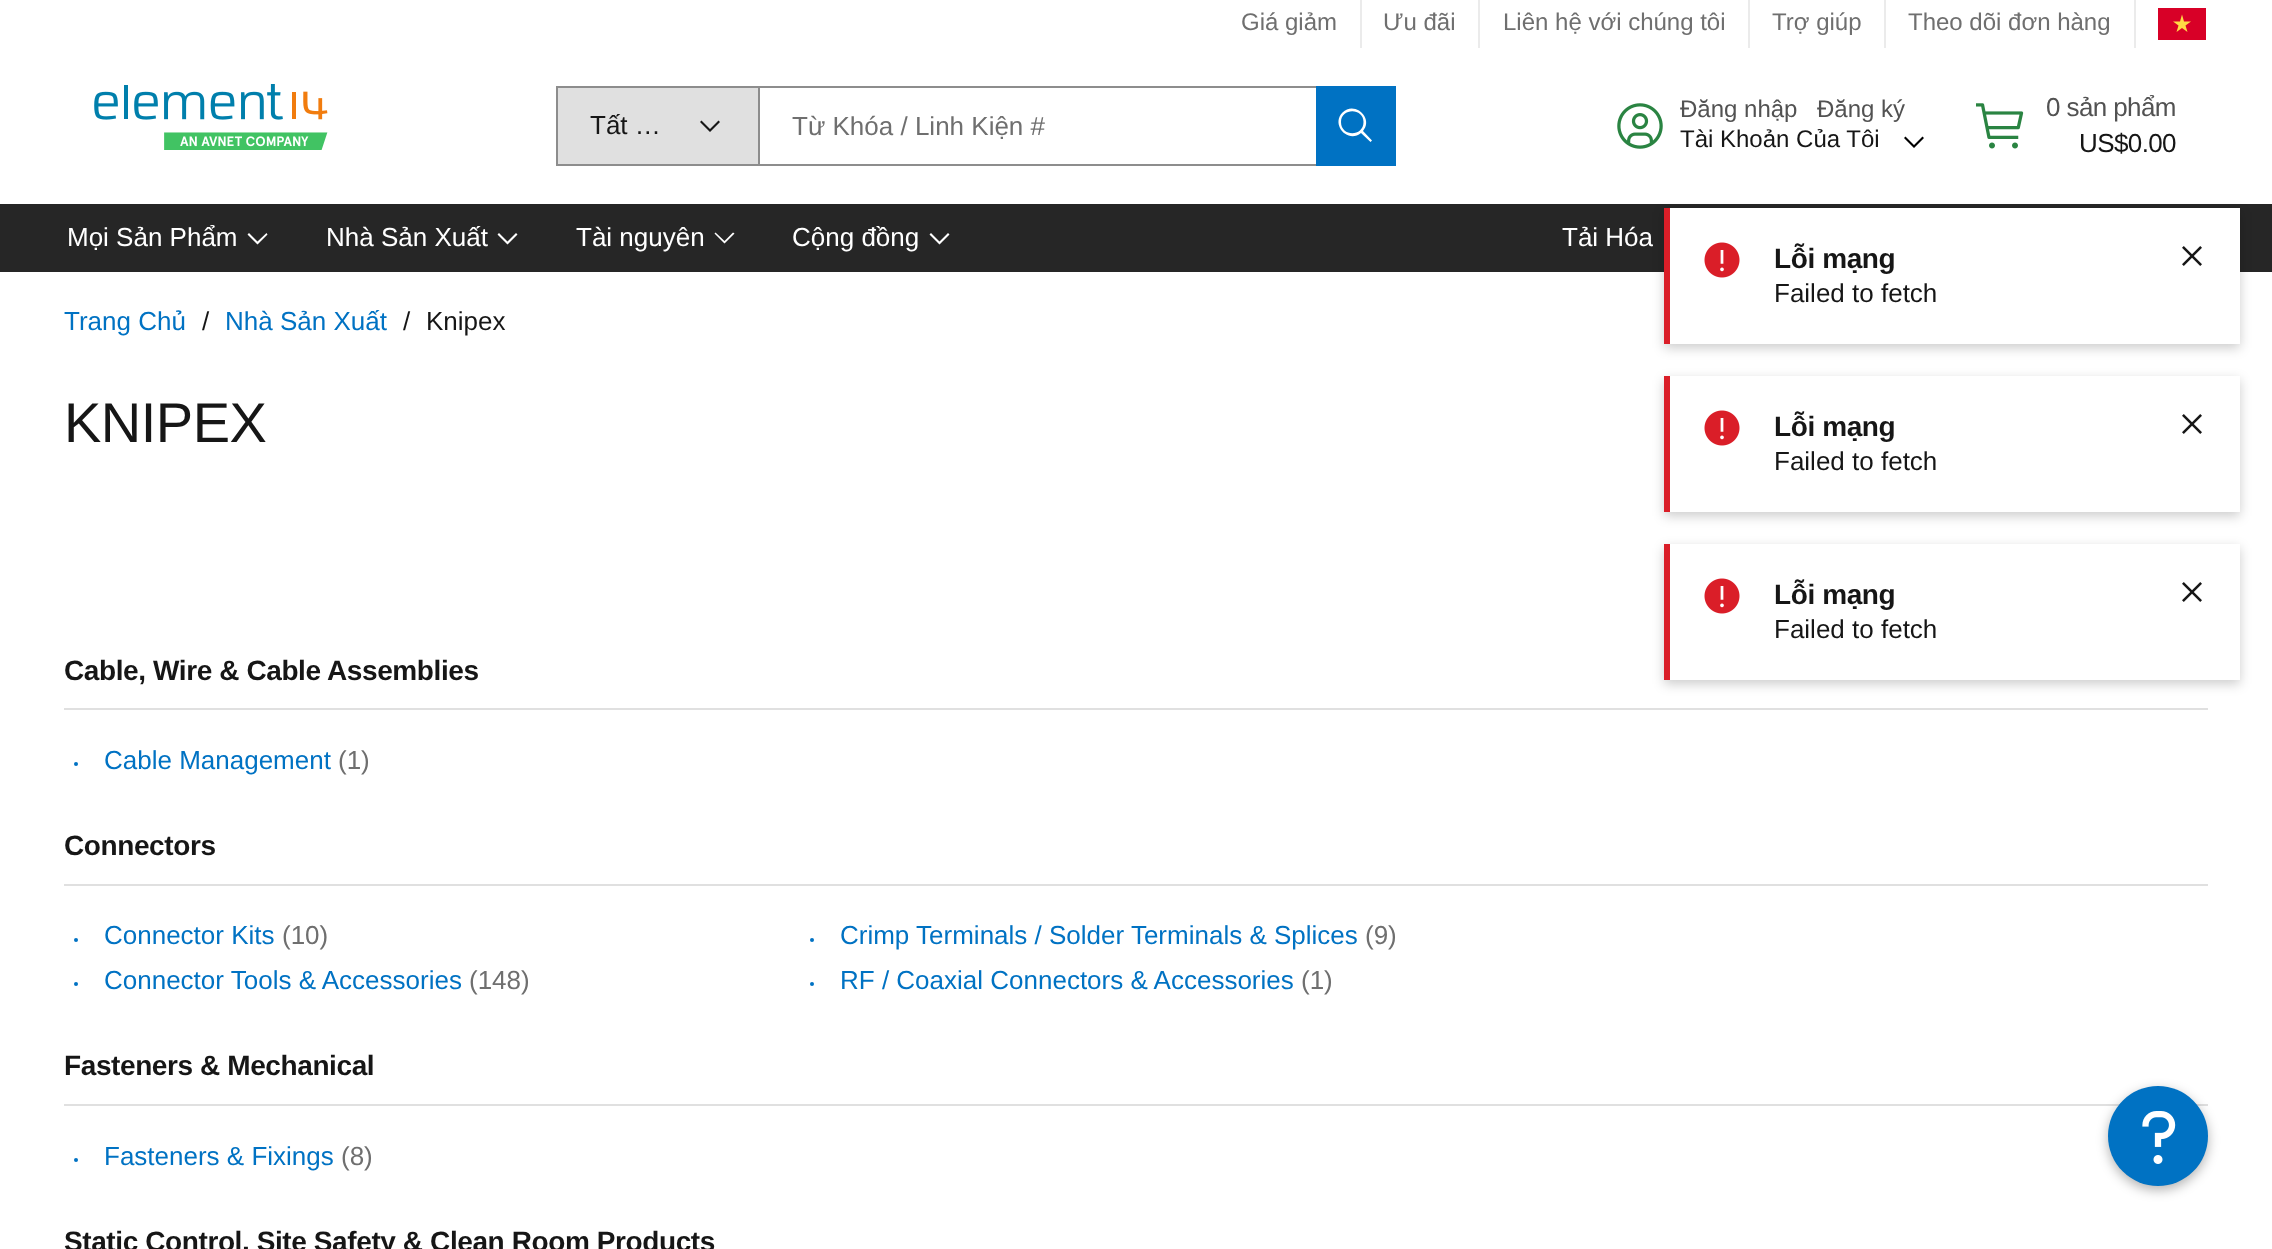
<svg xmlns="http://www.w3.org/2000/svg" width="2272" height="1249">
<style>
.a{font:24px Liberation Sans;fill:#6f6f6f}
.b{font:26px Liberation Sans;fill:#161616}
.c{font:26px Liberation Sans;fill:#6f6f6f}
.d{font:24px Liberation Sans;fill:#525252}
.e{font:24px Liberation Sans;fill:#161616}
.f{font:26px Liberation Sans;letter-spacing:-0.6px;fill:#525252}
.g{font:26px Liberation Sans;letter-spacing:-0.6px;fill:#161616}
.h{font:26px Liberation Sans;fill:#fff}
.i{font:26px Liberation Sans;fill:#0072c3}
.j{font:56px Liberation Sans;letter-spacing:-0.5px;fill:#161616}
.k{font:bold 28px Liberation Sans;letter-spacing:-0.4px;fill:#161616}
</style>
<defs>
<clipPath id="clip1"><path d="M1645 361h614v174h-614zm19 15h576v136h-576z" clip-rule="evenodd"/></clipPath>
<clipPath id="clip2"><path d="M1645 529h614v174h-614zm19 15h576v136h-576z" clip-rule="evenodd"/></clipPath>
</defs>
<rect width="100%" height="100%" fill="#fff"/>
<path fill="#ebebeb" d="M1360 0h2v48H1360z"/>
<path fill="#ebebeb" d="M1478 0h2v48H1478z"/>
<path fill="#ebebeb" d="M1748 0h2v48H1748z"/>
<path fill="#ebebeb" d="M1884 0h2v48H1884z"/>
<path fill="#ebebeb" d="M2134 0h2v48H2134z"/>
<path fill="#d80027" d="M2176 8h-18v32h48v-32z"/>
<path fill="#ffda44" d="M2182 14.5l2 7h7l-5.5 4l2 6.5l-5.5-4l-5.5 4l2-6.5l-5.5-4h7z"/>
<image href="1.png" x="94" y="84" width="234" height="66"/>
<path fill="#e0e0e0" d="M558 88h200v76H558z"/>
<path fill="#8d8d8d" d="M556 86h760v2H556z"/>
<path fill="#8d8d8d" d="M556 164h760v2H556z"/>
<path fill="#8d8d8d" d="M556 86h2v80H556z"/>
<path fill="#161616" d="M710 132l-10-10l1.5-1.5l8.5 8.5l8.5-8.5l1.5 1.5z"/>
<path fill="#8d8d8d" d="M758 86h2v80H758z"/>
<path fill="#0072c3" d="M1316 86h80v80H1316z"/>
<path fill="#fff" d="M1372 140.5l-9-9.5c11-13-8.5-30.5-20.5-18.5c-12 12 5.5 31.5 18.5 20.5l9.5 9zm-31-18.5c0-14.5 22.5-14.5 22.5 0c0 15-22.5 15-22.5 0z"/>
<image href="2.png" x="1617" y="103" width="46" height="46"/>
<path fill="#000" d="M1914 148l-10-10l1.5-1.5l8.5 8.5l8.5-8.5l1.5 1.5z"/>
<image href="3.png" x="1976" y="103" width="48" height="46"/>
<path fill="#262626" d="M0 204h2272v68H0z"/>
<path fill="#fff" d="M257.5 244.5l-10-10l1.5-1.5l8.5 8.5l9-8.5l1 1.5z"/>
<path fill="#fff" d="M507.5 244.5l-10-10l1.5-1.5l8.5 8.5l8.5-8.5l1.5 1.5z"/>
<path fill="#fff" d="M724.5 243.5l-10-10l1-1l9 8.5l8.5-8.5l1.5 1z"/>
<path fill="#fff" d="M939.5 244.5l-10-10l1.5-1.5l8.5 8.5l8.5-8.5l1.5 1.5z"/>
<path fill="#e0e0e0" d="M64 708h2144v2H64z"/>
<circle fill="#0072c3" cx="76" cy="764" r="2"/>
<path fill="#e0e0e0" d="M64 884h2144v2H64z"/>
<circle fill="#0072c3" cx="76" cy="940" r="2"/>
<circle fill="#0072c3" cx="812" cy="940" r="2"/>
<circle fill="#0072c3" cx="76" cy="984" r="2"/>
<circle fill="#0072c3" cx="812" cy="984" r="2"/>
<path fill="#e0e0e0" d="M64 1104h2144v2H64z"/>
<circle fill="#0072c3" cx="76" cy="1160" r="2"/>
<path fill="#00000033" filter="blur(6px)" d="M1664 212h576v136H1664z"/>
<path fill="#fff" d="M1670 208h570v136H1670z"/>
<path fill="#da1e28" d="M1664 208h6v136H1664z"/>
<image href="4.png" x="1704" y="242" width="36" height="36"/>
<image href="5.png" x="2182" y="246" width="20" height="20"/>
<g clip-path="url(#clip1)">
<path fill="#00000033" filter="blur(6px)" d="M1664 380h576v136H1664z"/>
</g>
<path fill="#da1e28" d="M1664 376h6v136H1664z"/>
<image href="4.png" x="1704" y="410" width="36" height="36"/>
<image href="5.png" x="2182" y="414" width="20" height="20"/>
<g clip-path="url(#clip2)">
<path fill="#00000033" filter="blur(6px)" d="M1664 548h576v136H1664z"/>
</g>
<path fill="#da1e28" d="M1664 544h6v136H1664z"/>
<image href="4.png" x="1704" y="578" width="36" height="36"/>
<image href="5.png" x="2182" y="582" width="20" height="20"/>
<rect fill="#0000004d" filter="blur(6px)" x="2108" y="1090" width="100" height="100" rx="50"/>
<circle fill="#0072c3" cx="2158" cy="1136" r="50"/>
<image href="6.png" x="2142" y="1111" width="34" height="53"/>
<text class="a" x="1241" y="30">Giá giảm</text>
<text class="a" x="1383" y="30">Ưu đãi</text>
<text class="a" x="1503" y="30">Liên hệ với chúng tôi</text>
<text class="a" x="1772" y="30">Trợ giúp</text>
<text class="a" x="1908" y="30">Theo dõi đơn hàng</text>
<text class="b" x="590" y="134">Tất …</text>
<text class="c" x="792" y="135">Từ Khóa / Linh Kiện #</text>
<text class="d" x="1680" y="117">Đăng nhập</text>
<text class="d" x="1817" y="117">Đăng ký</text>
<text class="e" x="1680" y="147">Tài Khoản Của Tôi</text>
<text class="f" x="2046" y="116">0 sản phẩm</text>
<text class="g" x="2079" y="152">US$0.00</text>
<text class="h" x="67" y="246">Mọi Sản Phẩm</text>
<text class="h" x="326" y="246">Nhà Sản Xuất</text>
<text class="h" x="576" y="246">Tài nguyên</text>
<text class="h" x="792" y="246">Cộng đồng</text>
<text class="h" x="1562" y="246">Tải Hóa</text>
<text class="i" x="64" y="330">Trang Chủ</text>
<text class="b" x="202" y="330">/</text>
<text class="i" x="225" y="330">Nhà Sản Xuất</text>
<text class="b" x="403" y="330">/</text>
<text class="b" x="426" y="330">Knipex</text>
<text class="j" x="64" y="442">KNIPEX</text>
<text class="k" x="64" y="680">Cable, Wire &amp; Cable Assemblies</text>
<text class="i" x="104" y="769">Cable Management</text>
<text class="c" x="338" y="769">(1)</text>
<text class="k" x="64" y="855">Connectors</text>
<text class="i" x="104" y="944">Connector Kits</text>
<text class="c" x="282" y="944">(10)</text>
<text class="i" x="840" y="944">Crimp Terminals / Solder Terminals &amp; Splices</text>
<text class="c" x="1365" y="944">(9)</text>
<text class="i" x="104" y="989">Connector Tools &amp; Accessories</text>
<text class="c" x="469" y="989">(148)</text>
<text class="i" x="840" y="989">RF / Coaxial Connectors &amp; Accessories</text>
<text class="c" x="1301" y="989">(1)</text>
<text class="k" x="64" y="1075">Fasteners &amp; Mechanical</text>
<text class="i" x="104" y="1165">Fasteners &amp; Fixings</text>
<text class="c" x="341" y="1165">(8)</text>
<text class="k" x="64" y="1251">Static Control, Site Safety &amp; Clean Room Products</text>
<text class="k" x="1774" y="268">Lỗi mạng</text>
<text class="b" x="1774" y="302">Failed to fetch</text>
<text class="k" x="1774" y="436">Lỗi mạng</text>
<text class="b" x="1774" y="470">Failed to fetch</text>
<text class="k" x="1774" y="604">Lỗi mạng</text>
<text class="b" x="1774" y="638">Failed to fetch</text>
</svg>
